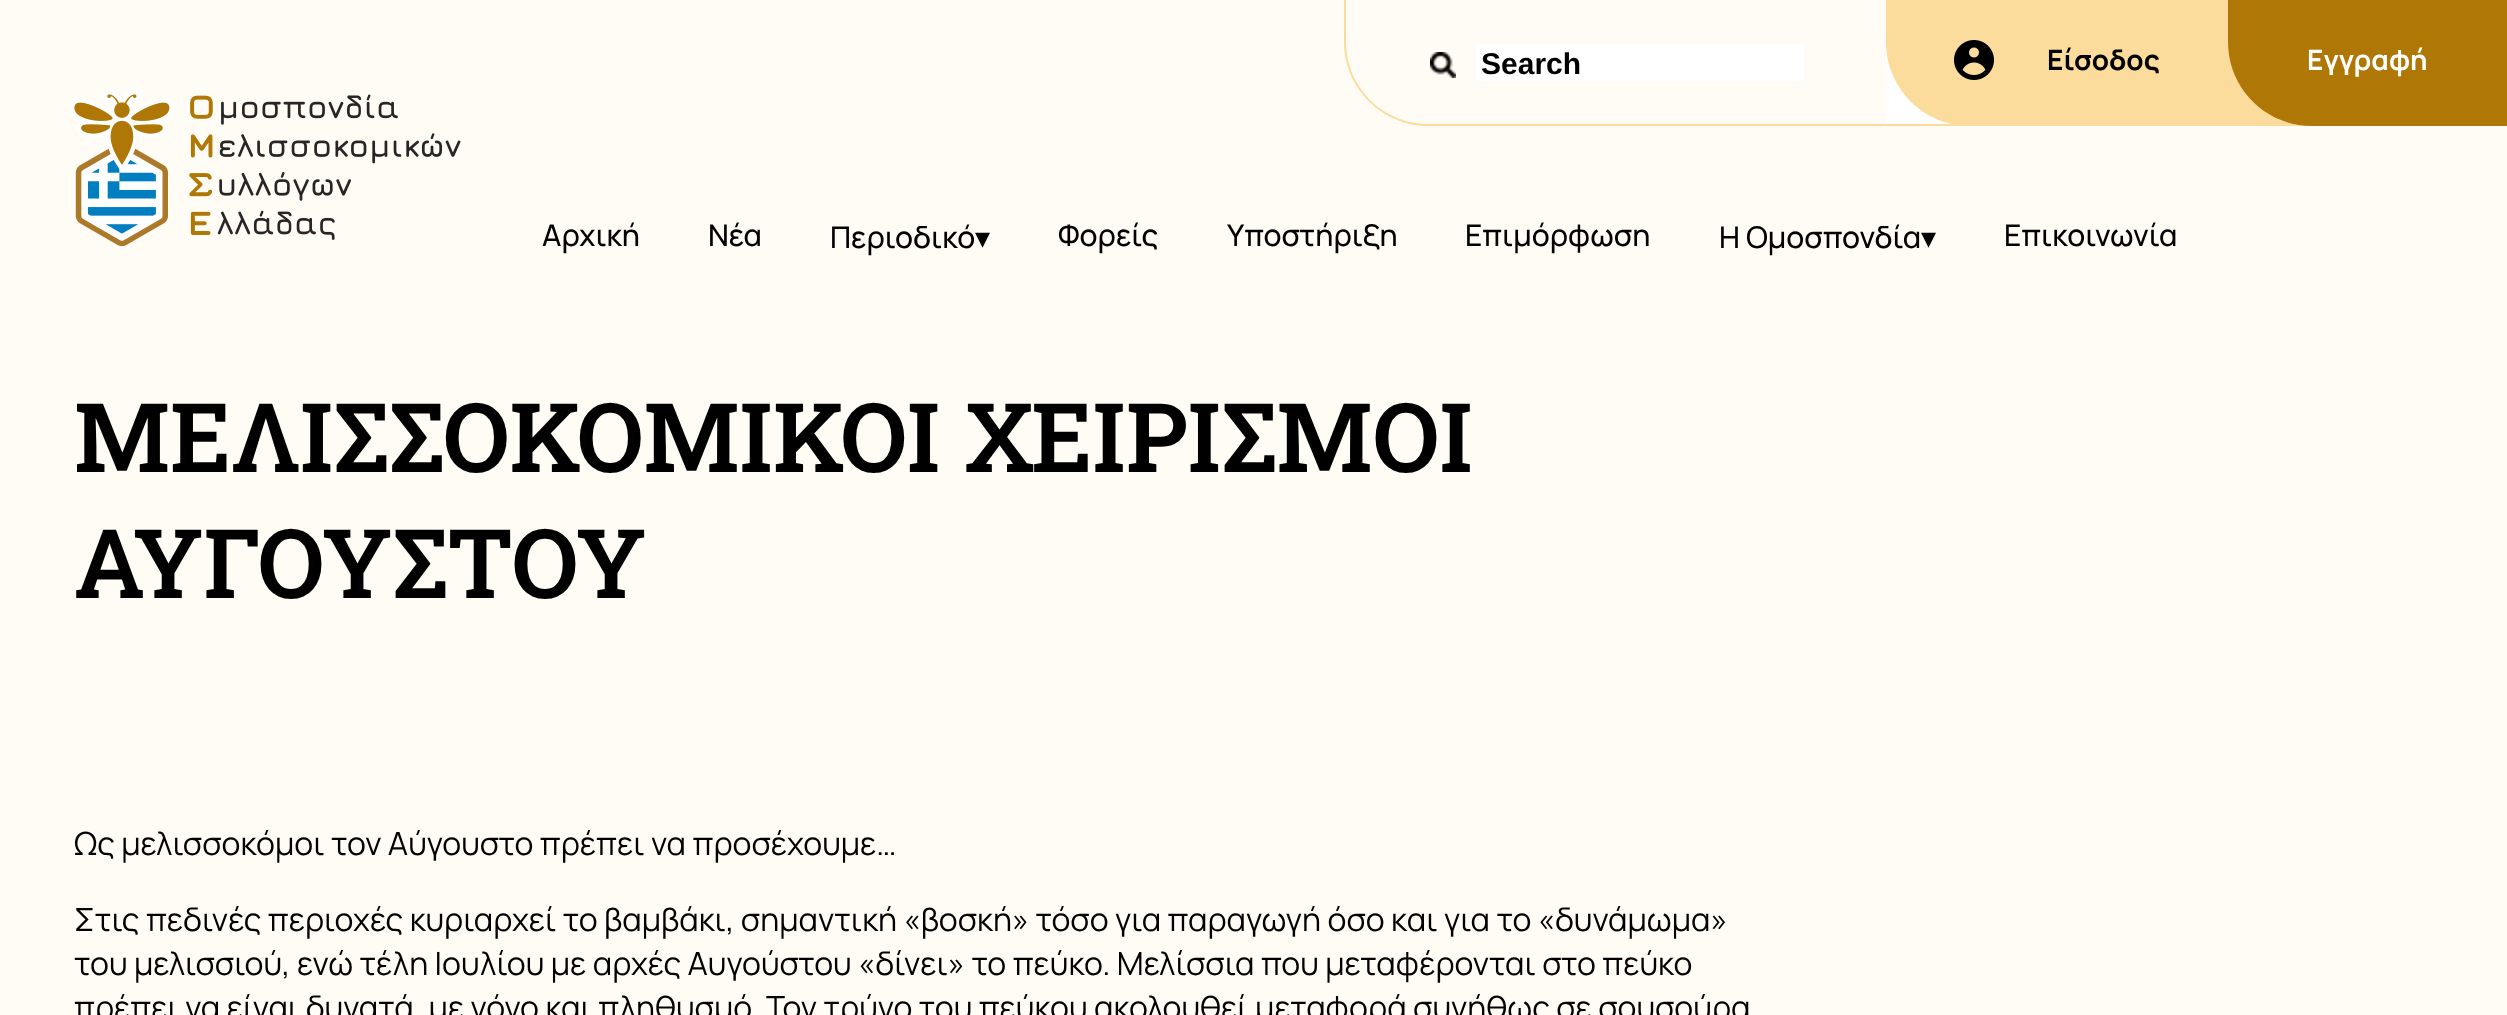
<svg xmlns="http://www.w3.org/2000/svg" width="2507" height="1015">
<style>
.a{font:bold 30px Liberation Sans;fill:#000}
.b{font:bold 28px Manrope;fill:#000}
.c{font:bold 28px Manrope;fill:#fff}
.d{font:500 30px Manrope;fill:#000}
.e{font:30px DejaVu Sans;fill:#000}
.f{font:600 96px Roboto Slab;fill:#000}
.g{font:32px Manrope;fill:#000}
</style>
<rect width="100%" height="100%" fill="#fffcf5"/>
<image href="1.png" x="70" y="90" width="391" height="157"/>
<path fill="#fcdc9c" fill-rule="evenodd" d="M1344 0h542v126h-458c-46 0-84-38-84-84zm2 0h540v124h-458c-45 0-82-37-82-82z"/>
<image href="2.png" x="1430" y="52" width="26" height="26"/>
<path fill="#fff" d="M1476 44h328v38H1476z"/>
<path fill="#fff" d="M1886 42h66v82H1886z"/>
<path fill="#fcdc9c" d="M1886 124h80v2H1886z"/>
<path fill="#fcdc9c" d="M1886 0h342v126h-258c-46.5 0-84-37.5-84-84z"/>
<image href="3.png" x="1954" y="40" width="40" height="40"/>
<path fill="#fcdc9c" d="M2228 42h80v84H2228z"/>
<path fill="#af7706" d="M2228 0h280v126h-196c-46.5 0-84-37.5-84-84z"/>
<text class="a" x="1481" y="74">Search</text>
<text class="b" x="2047" y="70">Είσοδος</text>
<text class="c" x="2307" y="70">Εγγραφή</text>
<text class="d" x="542" y="246">Αρχική</text>
<text class="d" x="708" y="246">Νέα</text>
<text class="d" x="830" y="248">Περιοδικό</text>
<text class="e" x="975" y="248">▾</text>
<text class="d" x="1058" y="246">Φορείς</text>
<text class="d" x="1227" y="246">Υποστήριξη</text>
<text class="d" x="1465" y="246">Επιμόρφωση</text>
<text class="d" x="1719" y="248">Η Ομοσπονδία</text>
<text class="e" x="1921" y="248">▾</text>
<text class="d" x="2004" y="246">Επικοινωνία</text>
<text class="f" x="74" y="472">ΜΕΛΙΣΣΟΚΟΜΙΚΟΙ ΧΕΙΡΙΣΜΟΙ</text>
<text class="f" x="74" y="598">ΑΥΓΟΥΣΤΟΥ</text>
<text class="g" x="74" y="855">Ως μελισσοκόμοι τον Αύγουστο πρέπει να προσέχουμε…</text>
<text class="g" x="74" y="931">Στις πεδινές περιοχές κυριαρχεί το βαμβάκι, σημαντική «βοσκή» τόσο για παραγωγή όσο και για το «δυνάμωμα»</text>
<text class="g" x="74" y="975">του μελισσιού, ενώ τέλη Ιουλίου με αρχές Αυγούστου «δίνει» το πεύκο. Μελίσσια που μεταφέρονται στο πεύκο</text>
<text class="g" x="74" y="1019">πρέπει να είναι δυνατά, με γόνο και πληθυσμό. Τον τρύγο του πεύκου ακολουθεί μεταφορά συνήθως σε σουσούρα</text>
</svg>
